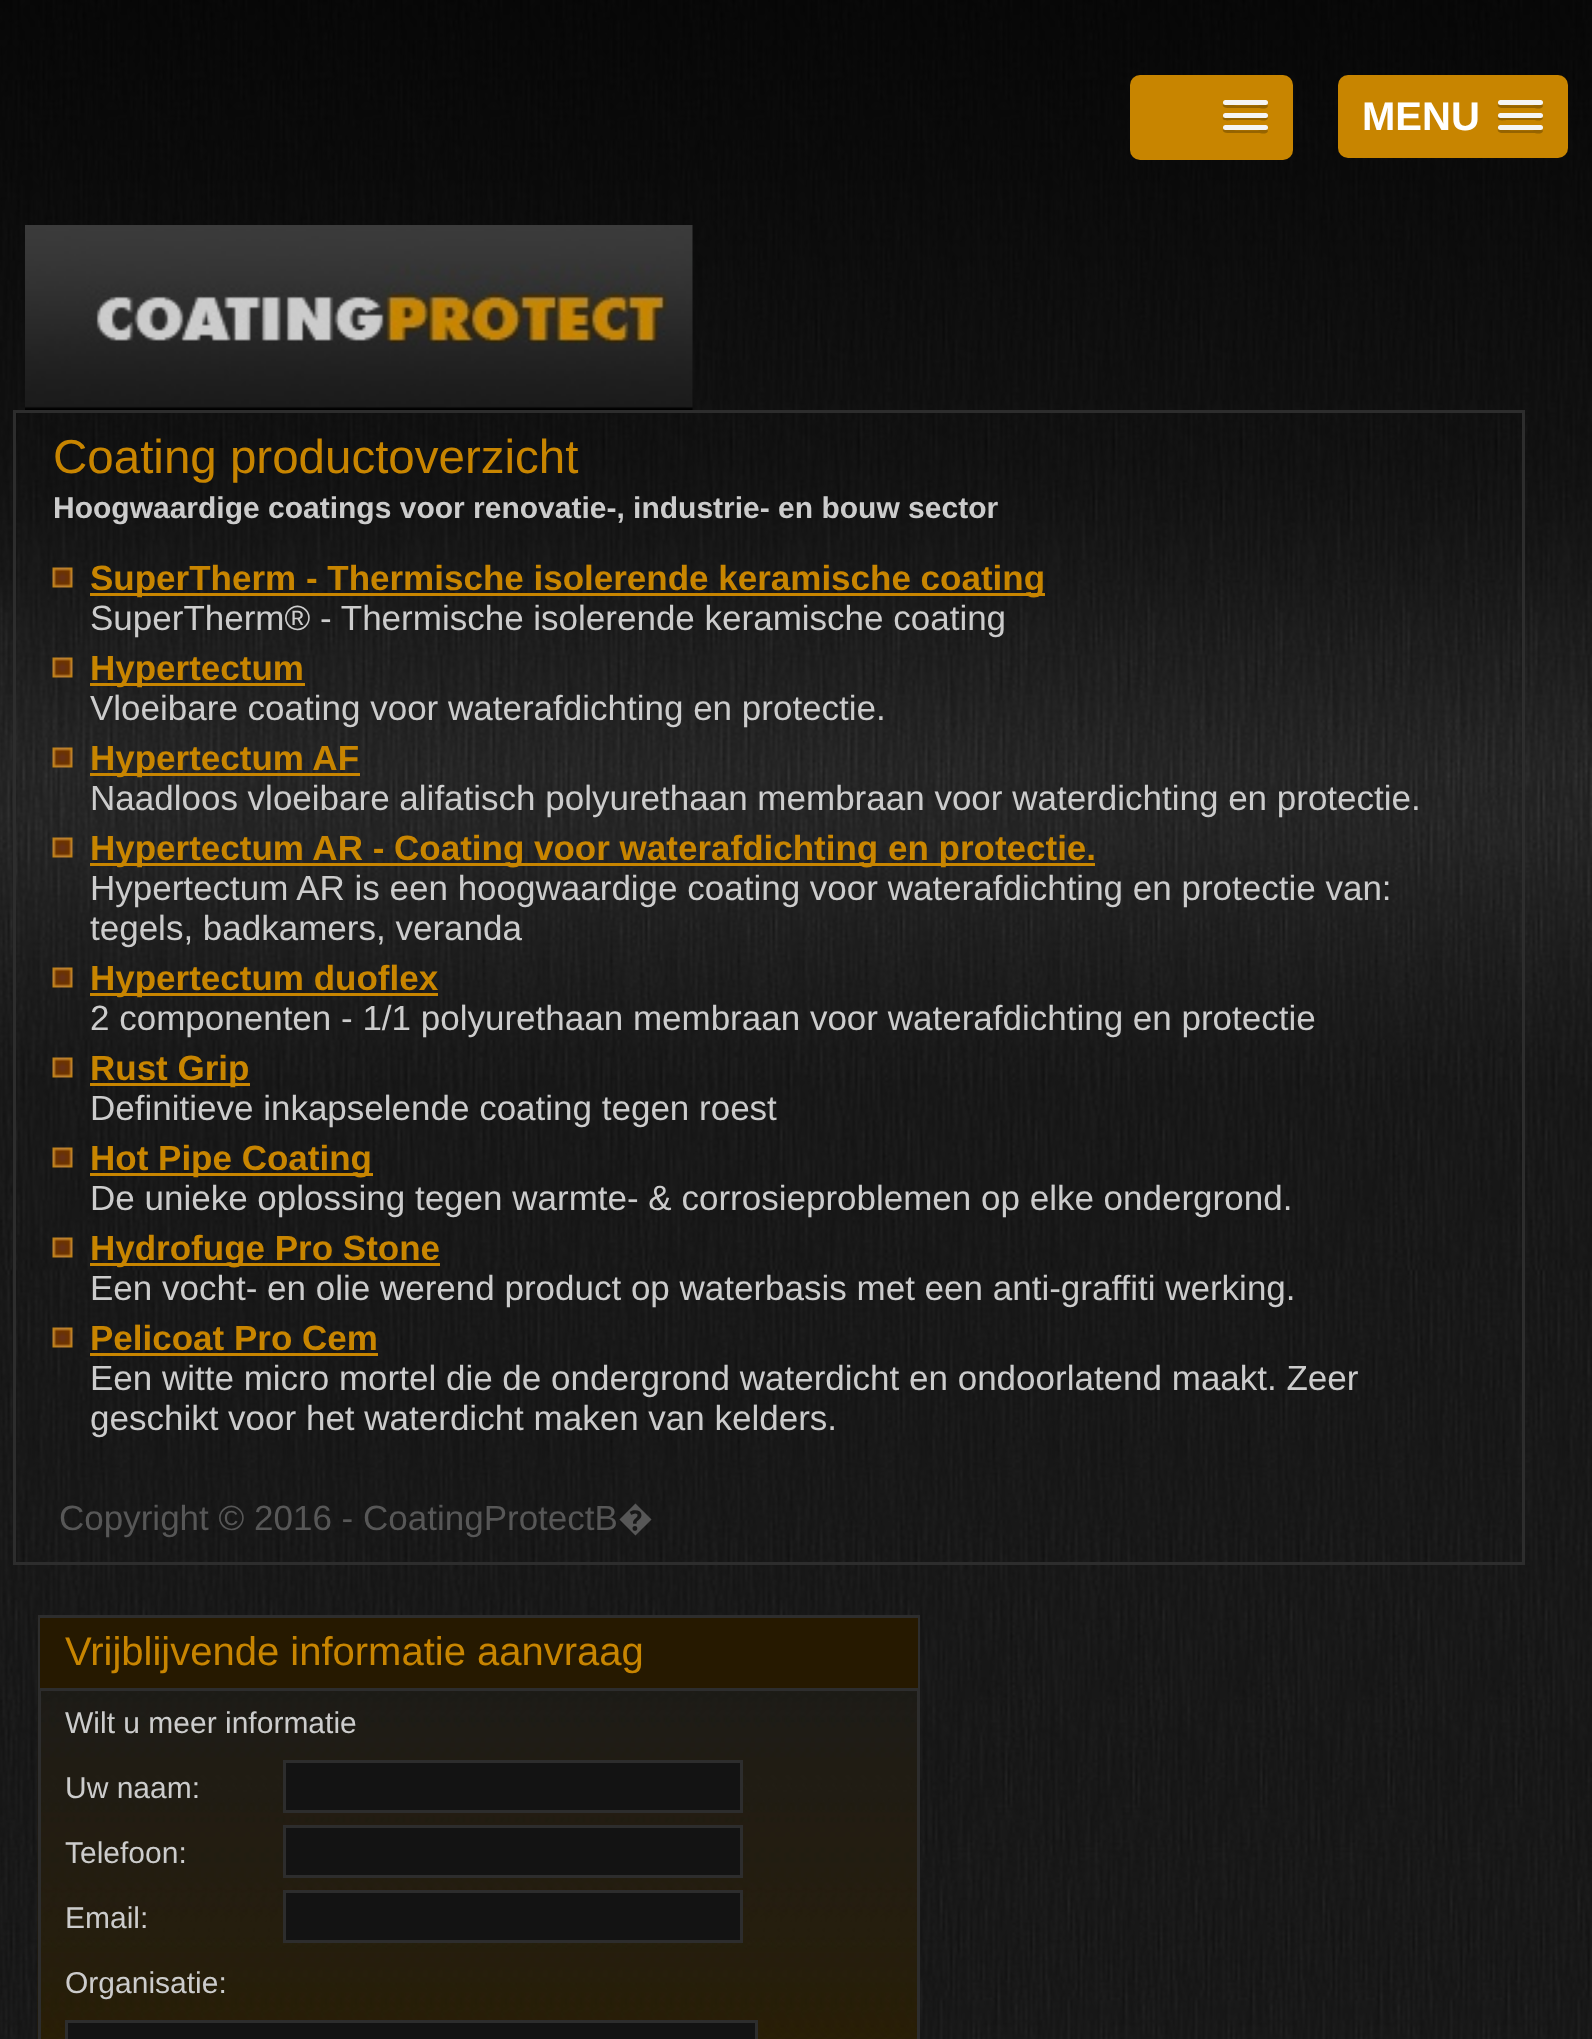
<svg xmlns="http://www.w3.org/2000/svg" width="1592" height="2039">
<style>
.a{font:bold 40px Liberation Sans;fill:#fff}
.b{font:47.5px Liberation Sans;fill:#c88500}
.c{font:bold 30px Liberation Sans;fill:#ccc}
.d{font:bold 35px Liberation Sans;fill:#c88500}
.e{font:35px Liberation Sans;fill:#ccc}
.f{font:35px Liberation Sans;fill:#575757}
.g{font:35px Noto Sans;fill:#575757}
.h{font:40px Liberation Sans;fill:#c88500}
.i{font:30px Liberation Sans;fill:#ccc}
</style>
<rect width="100%" height="100%" fill="#fff"/>
<image href="1.png" x="0" y="175" width="1592" height="1864"/>
<image href="2.png" x="0" y="0" width="1592" height="175"/>
<rect fill="#c88500" x="1130" y="75" width="163" height="85" rx="10"/>
<path fill="#966400" d="M1223 104c-2 5 9 4 9 4h27c1 0 8 2 9-2l-1-2l-2 1c-3 0-40 1-42-1z"/>
<rect fill="#f5f5f5" x="1223" y="100" width="45" height="5" rx="2.5"/>
<path fill="#966400" d="M1223 117c-2 5 8 3 9 3h27c1 0 8 2 9-2l-1-2l-2 1h-40z"/>
<rect fill="#f5f5f5" x="1223" y="113" width="45" height="5" rx="2.5"/>
<path fill="#966400" d="M1223 129c-2 5 9 4 9 4h27c1 0 8 2 9-2l-1-2l-2 1c-3 0-40 1-42-1z"/>
<rect fill="#f5f5f5" x="1223" y="125" width="45" height="5" rx="2.5"/>
<rect fill="#c88500" x="1338" y="75" width="230" height="83" rx="10"/>
<path fill="#966400" d="M1498 104c-2 5 9 4 9 4h27c1 0 8 2 9-2l-1-2l-2 1c-3 0-40 1-42-1z"/>
<rect fill="#f5f5f5" x="1498" y="100" width="45" height="5" rx="2.5"/>
<path fill="#966400" d="M1498 117c-2 5 8 3 9 3h27c1 0 8 2 9-2l-1-2l-2 1h-40z"/>
<rect fill="#f5f5f5" x="1498" y="113" width="45" height="5" rx="2.5"/>
<path fill="#966400" d="M1498 129c-2 5 9 4 9 4h27c1 0 8 2 9-2l-1-2l-2 1c-3 0-40 1-42-1z"/>
<rect fill="#f5f5f5" x="1498" y="125" width="45" height="5" rx="2.5"/>
<image href="3.png" x="25" y="225" width="668" height="185"/>
<path fill="none" stroke="#2d2d2d" stroke-width="3" d="M14.5 411.5h1509v1152H14.5z"/>
<image href="4.png" x="52" y="567" width="21" height="21"/>
<path fill="#c88500" d="M90 593h955v3H90z"/>
<image href="5.png" x="52" y="657" width="21" height="21"/>
<path fill="#c88500" d="M90 683h215v3H90z"/>
<image href="6.png" x="52" y="747" width="21" height="21"/>
<path fill="#c88500" d="M90 773h270v3H90z"/>
<image href="7.png" x="52" y="837" width="21" height="21"/>
<path fill="#c88500" d="M90 863h1005v3H90z"/>
<image href="8.png" x="52" y="967" width="21" height="21"/>
<path fill="#c88500" d="M90 993h348v3H90z"/>
<image href="9.png" x="52" y="1057" width="21" height="21"/>
<path fill="#c88500" d="M90 1083h160v3H90z"/>
<image href="10.png" x="52" y="1147" width="21" height="21"/>
<path fill="#c88500" d="M90 1173h283v3H90z"/>
<image href="11.png" x="52" y="1237" width="21" height="21"/>
<path fill="#c88500" d="M90 1263h350v3H90z"/>
<image href="12.png" x="52" y="1327" width="21" height="21"/>
<path fill="#c88500" d="M90 1353h288v3H90z"/>
<image href="13.png" x="37" y="1615" width="880" height="424"/>
<path fill="none" stroke="#2d2d2d" stroke-width="3" d="M39.5 1616.5h879v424H39.5z"/>
<path fill="#261900" d="M40 1618h878v70H40z"/>
<path fill="#2d2d2d" d="M40 1688h878v3H40z"/>
<path fill="#131313" stroke="#2d2d2d" stroke-width="3" d="M284.5 1761.5h457v50H284.5z"/>
<path fill="#131313" stroke="#2d2d2d" stroke-width="3" d="M284.5 1826.5h457v50H284.5z"/>
<path fill="#131313" stroke="#2d2d2d" stroke-width="3" d="M284.5 1891.5h457v50H284.5z"/>
<path fill="#131313" stroke="#2d2d2d" stroke-width="3" d="M66.5 2021.5h690v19H66.5z"/>
<text class="a" x="1362" y="130">MENU</text>
<text class="b" x="53" y="473">Coating productoverzicht</text>
<text class="c" x="53" y="518">Hoogwaardige coatings voor renovatie-, industrie- en bouw sector</text>
<text class="d" x="90" y="590">SuperTherm - Thermische isolerende keramische coating</text>
<text class="e" x="90" y="630">SuperTherm® - Thermische isolerende keramische coating</text>
<text class="d" x="90" y="680">Hypertectum</text>
<text class="e" x="90" y="720">Vloeibare coating voor waterafdichting en protectie.</text>
<text class="d" x="90" y="770">Hypertectum AF</text>
<text class="e" x="90" y="810">Naadloos vloeibare alifatisch polyurethaan membraan voor waterdichting en protectie.</text>
<text class="d" x="90" y="860">Hypertectum AR - Coating voor waterafdichting en protectie.</text>
<text class="e" x="90" y="900">Hypertectum AR is een hoogwaardige coating voor waterafdichting en protectie van:</text>
<text class="e" x="90" y="940">tegels, badkamers, veranda</text>
<text class="d" x="90" y="990">Hypertectum duoflex</text>
<text class="e" x="90" y="1030">2 componenten - 1/1 polyurethaan membraan voor waterafdichting en protectie</text>
<text class="d" x="90" y="1080">Rust Grip</text>
<text class="e" x="90" y="1120">Definitieve inkapselende coating tegen roest</text>
<text class="d" x="90" y="1170">Hot Pipe Coating</text>
<text class="e" x="90" y="1210">De unieke oplossing tegen warmte- &amp; corrosieproblemen op elke ondergrond.</text>
<text class="d" x="90" y="1260">Hydrofuge Pro Stone</text>
<text class="e" x="90" y="1300">Een vocht- en olie werend product op waterbasis met een anti-graffiti werking.</text>
<text class="d" x="90" y="1350">Pelicoat Pro Cem</text>
<text class="e" x="90" y="1390">Een witte micro mortel die de ondergrond waterdicht en ondoorlatend maakt. Zeer</text>
<text class="e" x="90" y="1430">geschikt voor het waterdicht maken van kelders.</text>
<text class="f" x="59" y="1530">Copyright © 2016 - CoatingProtectВ</text>
<text class="g" x="618" y="1530">�</text>
<text class="h" x="65" y="1665">Vrijblijvende informatie aanvraag</text>
<text class="i" x="65" y="1733">Wilt u meer informatie</text>
<text class="i" x="65" y="1798">Uw naam:</text>
<text class="i" x="65" y="1863">Telefoon:</text>
<text class="i" x="65" y="1928">Email:</text>
<text class="i" x="65" y="1993">Organisatie:</text>
</svg>
